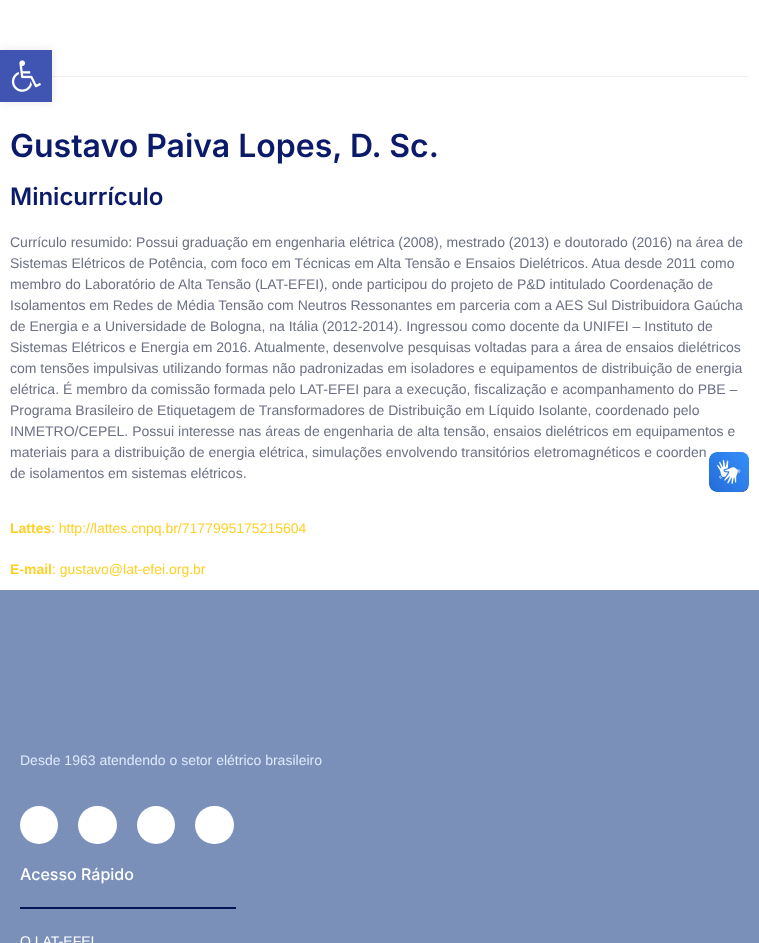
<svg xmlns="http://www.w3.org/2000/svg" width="759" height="943">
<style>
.a{font:600 32px Inter;fill:#0b1b69}
.b{font:600 24px Inter;fill:#0b1b69}
.c{font:14px Liberation Sans;fill:#6c7084}
.d{font:bold 14px Liberation Sans;fill:#ffd027}
.e{font:14px Liberation Sans;fill:#ffd027}
.f{font:14px Liberation Sans;fill:#dee9fc}
.g{font:500 16px Inter;fill:#fff}
.h{font:14px Liberation Sans;fill:#fff}
</style>
<rect width="100%" height="100%" fill="#fff"/>
<path fill="#efefef" d="M52 76h697v1H52z"/>
<path fill="#0000001a" filter="blur(5px)" d="M0 50h52v52H0z"/>
<path fill="#4054b2" d="M0 50h52v52H0z"/>
<image href="1.png" x="11" y="60" width="30" height="32"/>
<image href="2.png" x="709" y="452" width="40" height="40"/>
<image href="3.png" x="709" y="452" width="40" height="40"/>
<path fill="#7a90b9" d="M0 590h759v353H0z"/>
<circle fill="#fff" cx="39" cy="825" r="19"/>
<rect fill="#fff" x="78" y="806" width="39" height="38" rx="19"/>
<circle fill="#fff" cx="156" cy="825" r="19"/>
<rect fill="#fff" x="195" y="806" width="39" height="38" rx="19"/>
<path fill="#021456" d="M20 907h216v2H20z"/>
<text class="a" x="10" y="157">Gustavo Paiva Lopes, D. Sc.</text>
<text class="b" x="10" y="205">Minicurrículo</text>
<text class="c" x="10" y="247">Currículo resumido: Possui graduação em engenharia elétrica (2008), mestrado (2013) e doutorado (2016) na área de</text>
<text class="c" x="10" y="268">Sistemas Elétricos de Potência, com foco em Técnicas em Alta Tensão e Ensaios Dielétricos. Atua desde 2011 como</text>
<text class="c" x="10" y="289">membro do Laboratório de Alta Tensão (LAT-EFEI), onde participou do projeto de P&amp;D intitulado Coordenação de</text>
<text class="c" x="10" y="310">Isolamentos em Redes de Média Tensão com Neutros Ressonantes em parceria com a AES Sul Distribuidora Gaúcha</text>
<text class="c" x="10" y="331">de Energia e a Universidade de Bologna, na Itália (2012-2014). Ingressou como docente da UNIFEI – Instituto de</text>
<text class="c" x="10" y="352">Sistemas Elétricos e Energia em 2016. Atualmente, desenvolve pesquisas voltadas para a área de ensaios dielétricos</text>
<text class="c" x="10" y="373">com tensões impulsivas utilizando formas não padronizadas em isoladores e equipamentos de distribuição de energia</text>
<text class="c" x="10" y="394">elétrica. É membro da comissão formada pelo LAT-EFEI para a execução, fiscalização e acompanhamento do PBE –</text>
<text class="c" x="10" y="415">Programa Brasileiro de Etiquetagem de Transformadores de Distribuição em Líquido Isolante, coordenado pelo</text>
<text class="c" x="10" y="436">INMETRO/CEPEL. Possui interesse nas áreas de engenharia de alta tensão, ensaios dielétricos em equipamentos e</text>
<text class="c" x="10" y="457">materiais para a distribuição de energia elétrica, simulações envolvendo transitórios eletromagnéticos e coorden</text>
<text class="c" x="10" y="478">de isolamentos em sistemas elétricos.</text>
<text class="d" x="10" y="533">Lattes</text>
<text class="e" x="51" y="533">: http://lattes.cnpq.br/7177995175215604</text>
<text class="d" x="10" y="574">E-mail</text>
<text class="e" x="52" y="574">: gustavo@lat-efei.org.br</text>
<text class="f" x="20" y="765">Desde 1963 atendendo o setor elétrico brasileiro</text>
<text class="g" x="20" y="880">Acesso Rápido</text>
<text class="h" x="20" y="946">O LAT-EFEI</text>
</svg>
